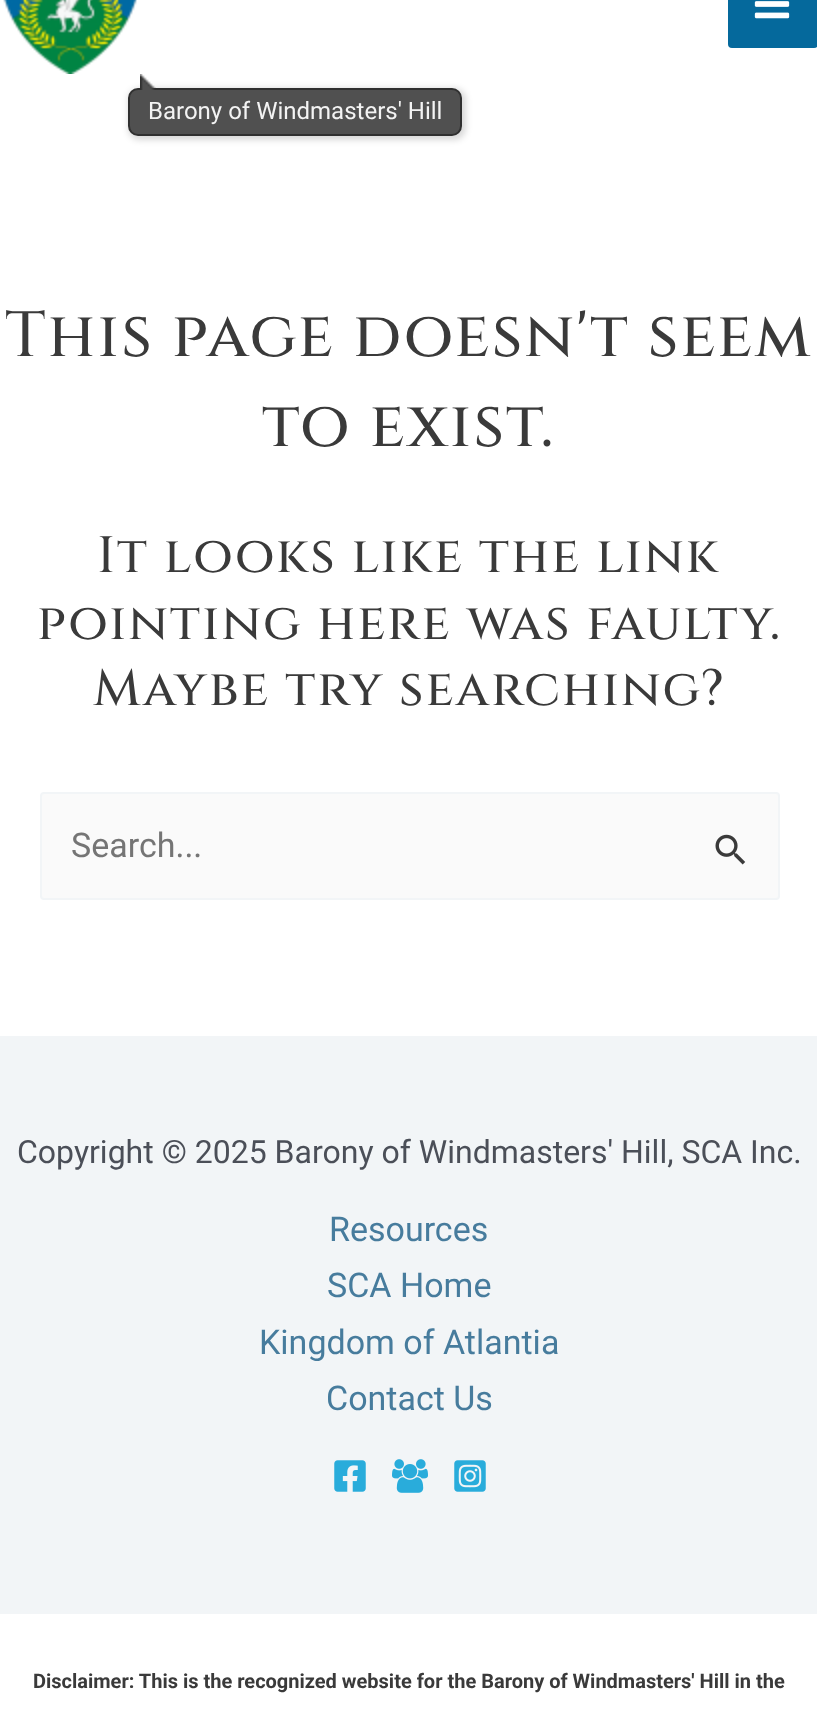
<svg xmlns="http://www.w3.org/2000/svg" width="817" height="1731">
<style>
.a{font:24px Roboto;fill:#f3f3f3}
.b{font:500 64px Cinzel;letter-spacing:2px;fill:#3a3a3a}
.c{font:500 51px Cinzel;letter-spacing:2px;fill:#3a3a3a}
.d{font:34px Roboto;fill:#757575}
.e{font:32px Roboto;fill:#4b4f58}
.f{font:34px Roboto;fill:#477c9d}
.g{font:bold 20px Roboto;fill:#3a3a3a}
</style>
<rect width="100%" height="100%" fill="#fff"/>
<rect fill="#00000026" filter="blur(3px)" x="128" y="88" width="338" height="52" rx="12"/>
<rect fill="#505050" stroke="#303030" stroke-width="2" x="129" y="89" width="332" height="46" rx="9"/>
<image href="1.png" x="140" y="74" width="16" height="16"/>
<image href="2.png" x="3" y="0" width="134" height="74"/>
<rect fill="#05699c" x="728" y="-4" width="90" height="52" rx="4"/>
<image href="3.png" x="754" y="1" width="36" height="18"/>
<rect fill="#fafafa" stroke="#f2f5f7" stroke-width="2" x="41" y="793" width="738" height="106" rx="3"/>
<image href="4.png" x="715" y="834" width="31" height="31"/>
<path fill="#f2f5f7" d="M0 1036h817v578H0z"/>
<image href="5.png" x="334" y="1460" width="32" height="32"/>
<image href="6.png" x="392" y="1459" width="36" height="34"/>
<image href="7.png" x="454" y="1460" width="32" height="32"/>
<text class="a" x="148" y="119">Barony of Windmasters' Hill</text>
<text class="b" x="5" y="356">This page doesn't seem</text>
<text class="b" x="262" y="446">to exist.</text>
<text class="c" x="97" y="572">It looks like the link</text>
<text class="c" x="37" y="639">pointing here was faulty.</text>
<text class="c" x="93" y="705">Maybe try searching?</text>
<text class="d" x="71" y="857">Search...</text>
<text class="e" x="17" y="1163">Copyright © 2025 Barony of Windmasters' Hill, SCA Inc.</text>
<text class="f" x="329" y="1241">Resources</text>
<text class="f" x="327" y="1297">SCA Home</text>
<text class="f" x="259" y="1354">Kingdom of Atlantia</text>
<text class="f" x="326" y="1410">Contact Us</text>
<text class="g" x="33" y="1688">Disclaimer: This is the recognized website for the Barony of Windmasters' Hill in the</text>
</svg>
